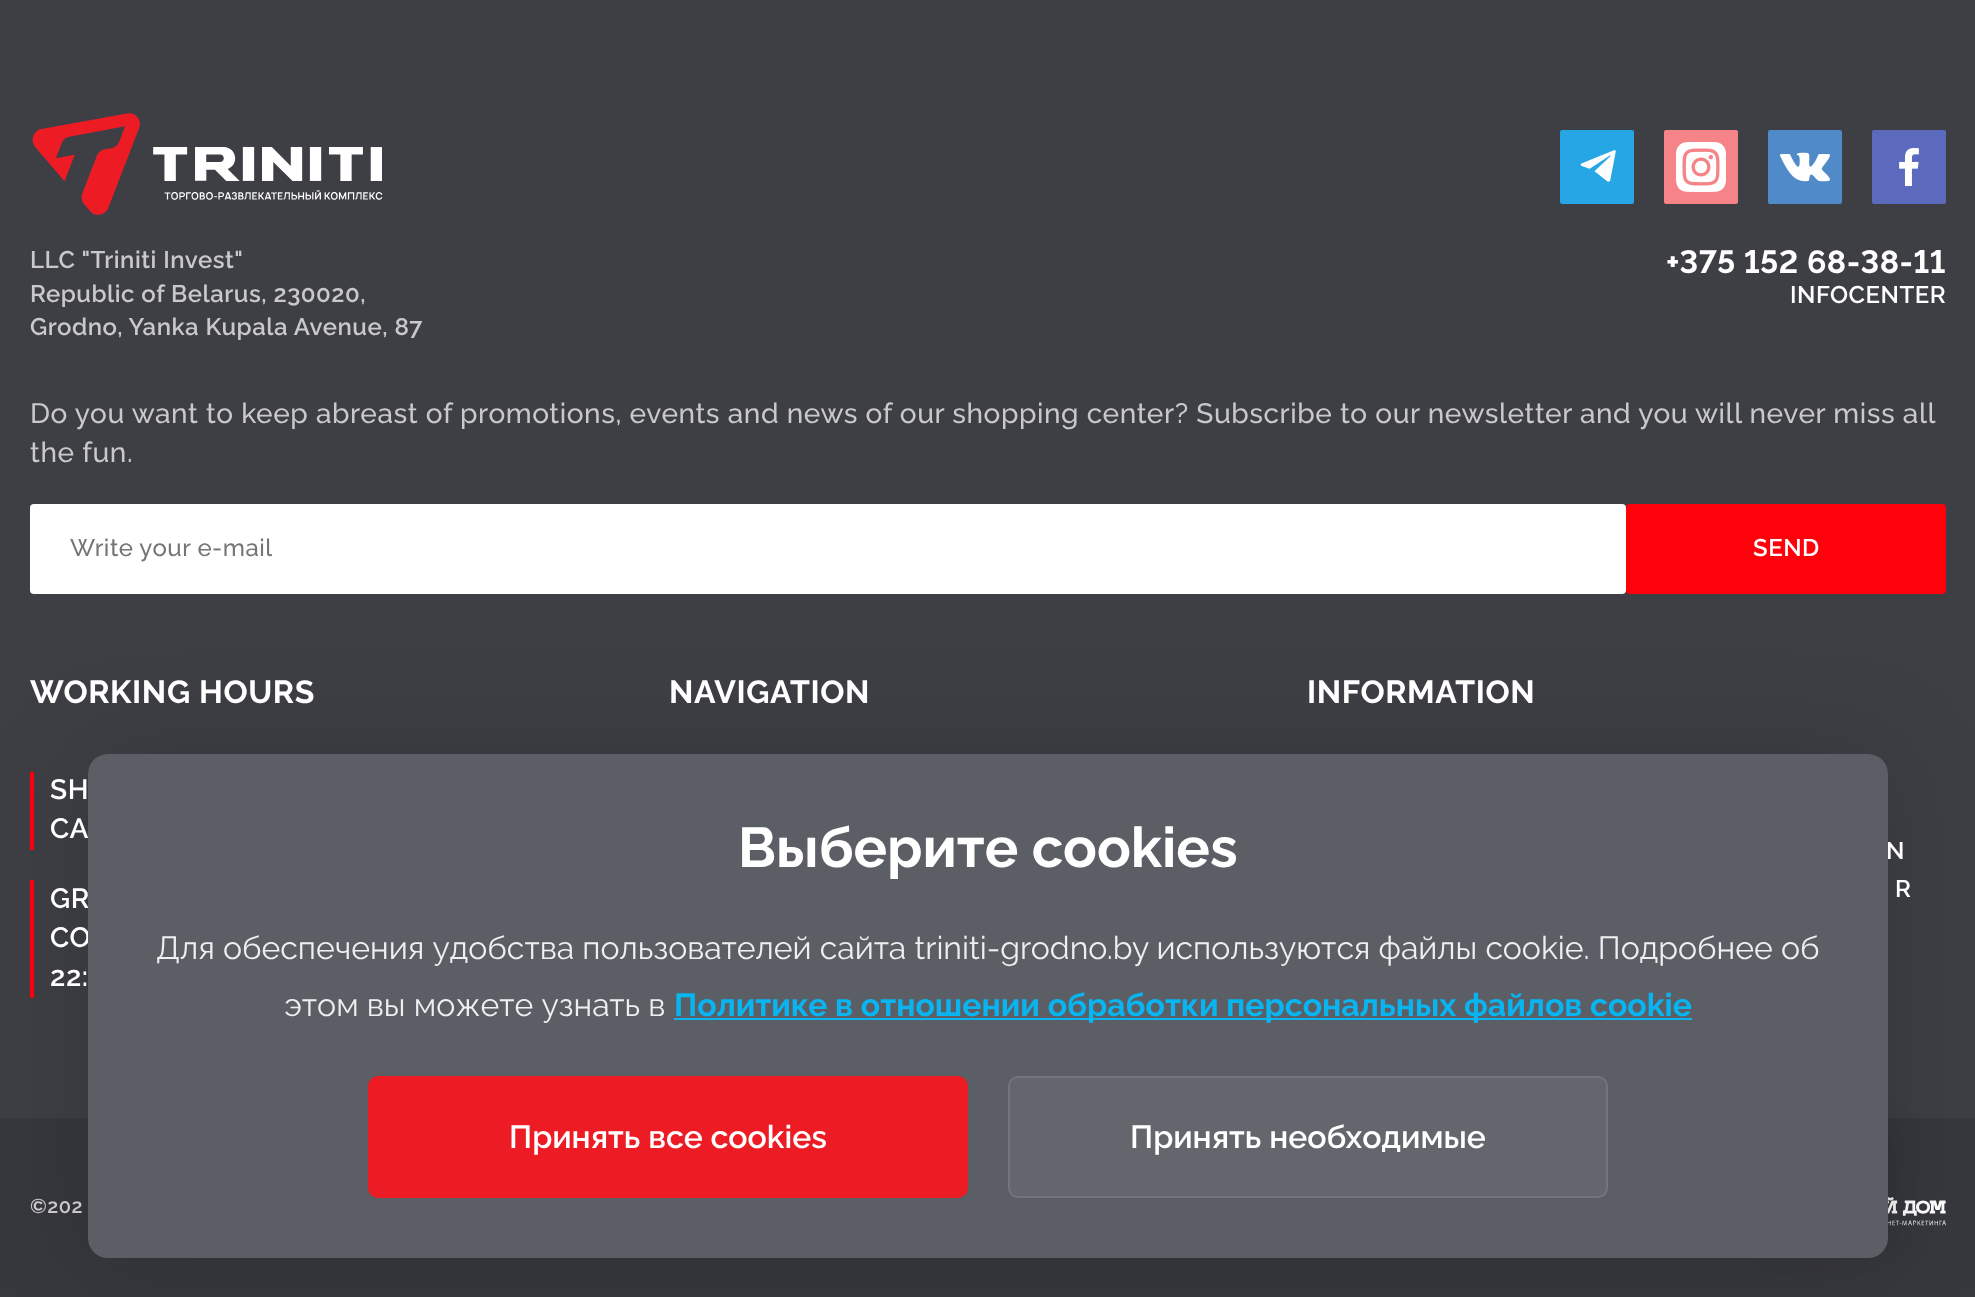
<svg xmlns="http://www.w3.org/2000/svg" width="1975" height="1297">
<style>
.a{font:600 24px Raleway;letter-spacing:0.5px;fill:#c9c9c9}
.b{font:bold 32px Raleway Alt;letter-spacing:0.5px;fill:#fff}
.c{font:600 24px Raleway;letter-spacing:0.5px;fill:#fff}
.d{font:500 28px Raleway;letter-spacing:0.56px;fill:#c9c9c9}
.e{font:500 24px Raleway;letter-spacing:0.5px;fill:#757575}
.f{font:bold 32px Raleway;letter-spacing:0.6px;fill:#fff}
.g{font:600 28px Raleway;letter-spacing:0.56px;fill:#fff}
.h{font:600 20px Raleway;letter-spacing:0.5px;fill:#c9c9c9}
.i{font:bold 56px Raleway;fill:#fff}
.j{font:32px Raleway;fill:#efeff0}
.k{font:bold 32px Raleway;fill:#09b5f0}
.l{font:600 32px Raleway;fill:#fff}
</style>
<rect width="100%" height="100%" fill="#3d3f45"/>
<image href="1.png" x="32" y="113" width="351" height="102"/>
<rect fill="#27a6e5" x="1560" y="130" width="74" height="74" rx="2"/>
<image href="2.png" x="1580" y="150" width="36" height="32"/>
<rect fill="#f58387" x="1664" y="130" width="74" height="74" rx="2"/>
<image href="3.png" x="1676" y="142" width="50" height="50"/>
<rect fill="#518ac9" x="1768" y="130" width="74" height="74" rx="2"/>
<image href="4.png" x="1780" y="152" width="50" height="30"/>
<rect fill="#5b6abd" x="1872" y="130" width="74" height="74" rx="2"/>
<image href="5.png" x="1899" y="148" width="20" height="38"/>
<rect fill="#fff" x="30" y="504" width="1596" height="90" rx="4"/>
<rect fill="#ff010b" x="1626" y="504" width="320" height="90" rx="4"/>
<path fill="#ff010b" d="M30 772h4v78H30z"/>
<path fill="#ff010b" d="M30 880h4v118H30z"/>
<path fill="#37383e" d="M0 1118h1975v179H0z"/>
<image href="6.png" x="1888" y="1197" width="58" height="29"/>
<rect fill="#00000026" filter="blur(16px)" x="1766" y="1122" width="120" height="120" rx="8"/>
<rect fill="#00000026" filter="blur(50px)" x="88" y="754" width="1800" height="504" rx="20"/>
<text class="a" x="30" y="268">LLC "Triniti Invest"</text>
<text class="a" x="30" y="302">Republic of Belarus, 230020,</text>
<text class="a" x="30" y="335">Grodno, Yanka Kupala Avenue, 87</text>
<text class="b" x="1666" y="273">+375 152 68-38-11</text>
<text class="c" x="1790" y="303">INFOCENTER</text>
<text class="d" x="30" y="423">Do you want to keep abreast of promotions, events and news of our shopping center? Subscribe to our newsletter and you will never miss all</text>
<text class="d" x="30" y="462">the fun.</text>
<text class="e" x="70" y="556">Write your e-mail</text>
<text class="c" x="1753" y="556">SEND</text>
<text class="f" x="30" y="703">WORKING HOURS</text>
<text class="g" x="50" y="799">SH</text>
<text class="g" x="50" y="838">CA</text>
<text class="g" x="50" y="908">GR</text>
<text class="g" x="50" y="947">CO</text>
<text class="g" x="50" y="986">22:</text>
<text class="f" x="669" y="703">NAVIGATION</text>
<text class="f" x="1307" y="703">INFORMATION</text>
<text class="c" x="1886" y="859">N</text>
<text class="c" x="1895" y="897">R</text>
<text class="h" x="30" y="1213">©202</text>
<rect fill="#5b5e65" x="88" y="754" width="1800" height="504" rx="20"/>
<text class="i" x="738" y="867">Выберите cookies</text>
<text class="j" x="156" y="959">Для обеспечения удобства пользователей сайта triniti-grodno.by используются файлы cookie. Подробнее об</text>
<text class="j" x="284" y="1016">этом вы можете узнать в</text>
<path fill="#09b5f0" d="M674 1018h1018v2H674z"/>
<text class="k" x="674" y="1016">Политике в отношении обработки персональных файлов cookie</text>
<rect fill="#ed1c24" x="368" y="1076" width="600" height="122" rx="10"/>
<text class="l" x="509" y="1148">Принять все cookies</text>
<rect fill="#63666d" x="1008" y="1076" width="600" height="122" rx="10"/>
<rect fill="none" stroke="#ffffff1a" stroke-width="2" x="1009" y="1077" width="598" height="120" rx="9"/>
<text class="l" x="1130" y="1148">Принять необходимые</text>
</svg>
